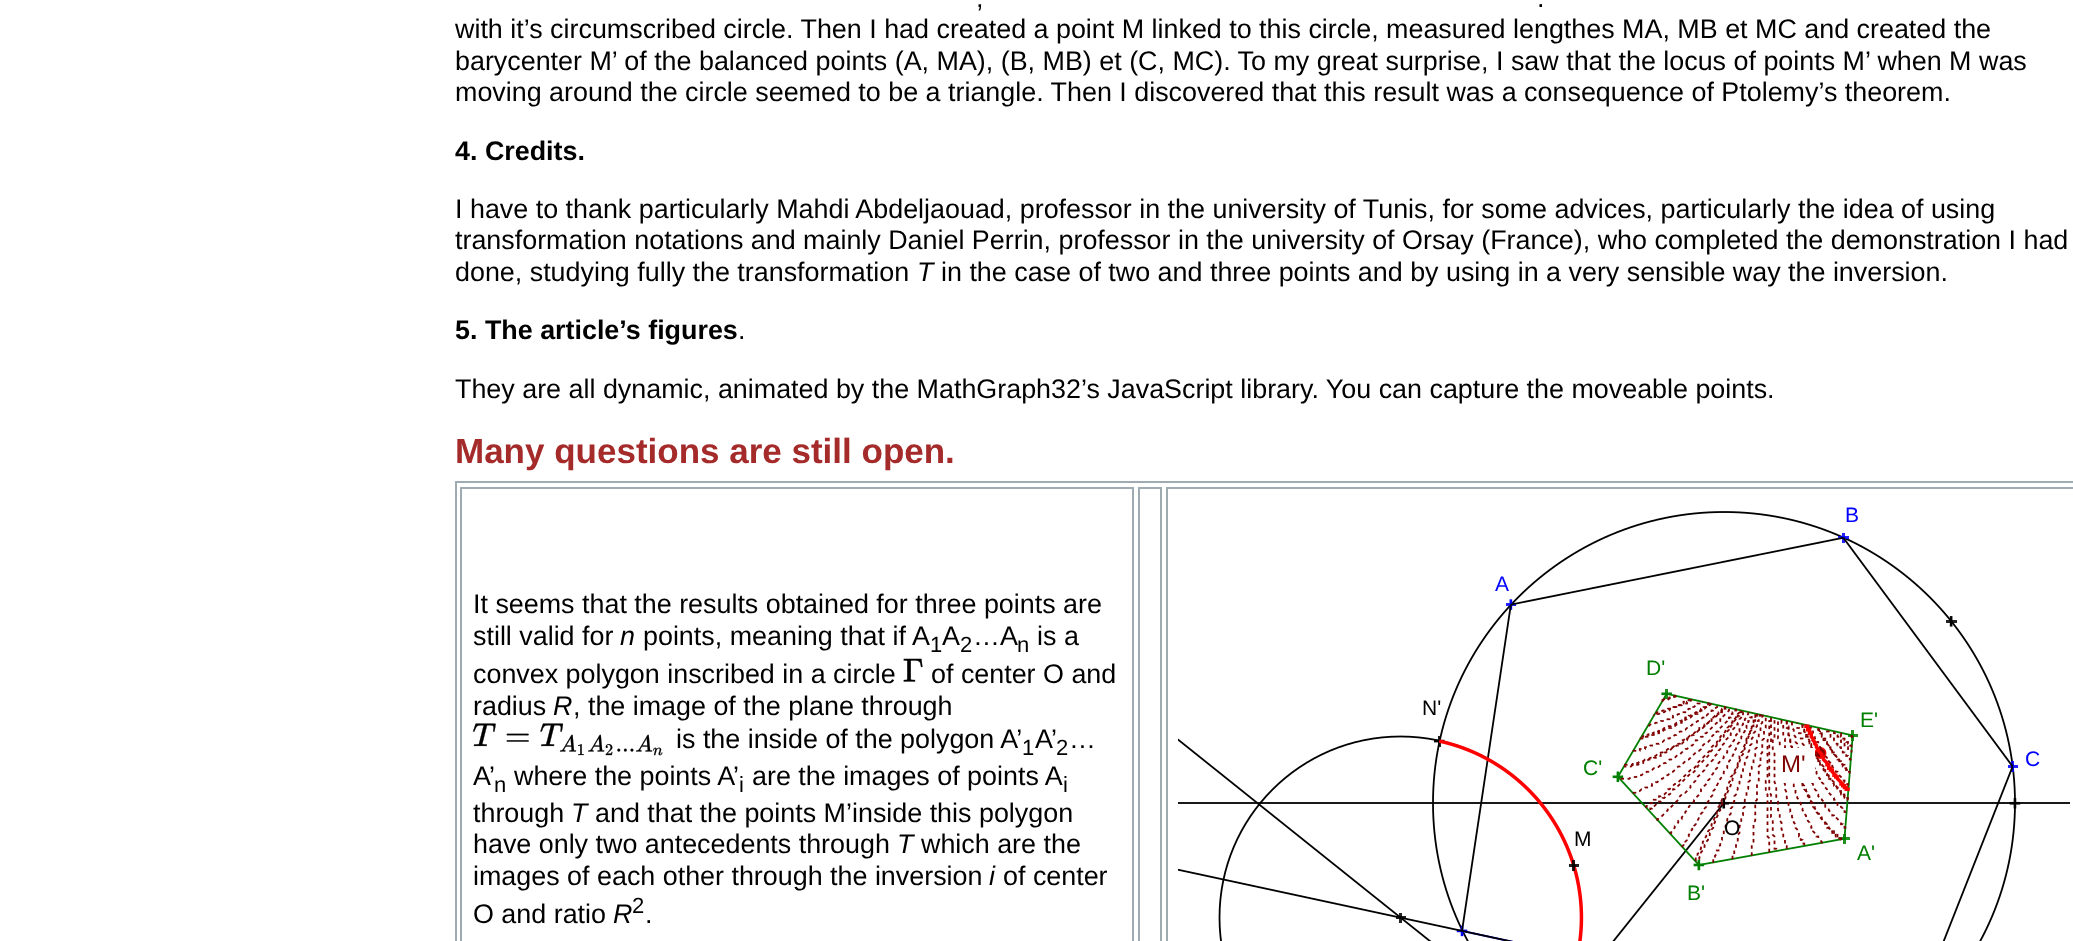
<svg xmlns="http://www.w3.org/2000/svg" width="2073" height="941">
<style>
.a{font:26.88px Liberation Sans;fill:#000}
.b{font:bold 26.88px Liberation Sans;fill:#000}
.c{font:italic 26.88px Liberation Sans;fill:#000}
.d{font:bold 35px Liberation Sans;fill:#a52a2a}
.e{font:22px Liberation Sans;fill:#000}
.f{font:21px Liberation Sans;fill:#00f}
.g{font:21px Liberation Sans;fill:#007f00}
.h{font:21px Liberation Sans;fill:#000}
.i{font:24px Liberation Sans;fill:#7f0000}
</style>
<rect width="100%" height="100%" fill="#fff"/>
<path fill="none" stroke="#9eabb0" stroke-width="2" d="M456 482h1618v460H456z"/>
<path fill="none" stroke="#9eabb0" stroke-width="2" d="M461 488h672v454H461z"/>
<image href="1.png" x="903" y="658" width="20" height="24"/>
<image href="2.png" x="473" y="723" width="190" height="33"/>
<path fill="none" stroke="#9eabb0" stroke-width="2" d="M1139 488h22v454H1139z"/>
<path fill="none" stroke="#9eabb0" stroke-width="2" d="M1167 488h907v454H1167z"/>
<image href="3.png" x="1178" y="511" width="892" height="430"/>
<text class="a" x="976" y="7">,</text>
<text class="a" x="1537" y="7">.</text>
<text class="a" x="455" y="38">with it’s circumscribed circle. Then I had created a point M linked to this circle, measured lengthes MA, MB et MC and created the</text>
<text class="a" x="455" y="70">barycenter M’ of the balanced points (A, MA), (B, MB) et (C, MC). To my great surprise, I saw that the locus of points M’ when M was</text>
<text class="a" x="455" y="101">moving around the circle seemed to be a triangle. Then I discovered that this result was a consequence of Ptolemy’s theorem.</text>
<text class="b" x="455" y="160">4. Credits.</text>
<text class="a" x="455" y="218">I have to thank particularly Mahdi Abdeljaouad, professor in the university of Tunis, for some advices, particularly the idea of using</text>
<text class="a" x="455" y="249">transformation notations and mainly Daniel Perrin, professor in the university of Orsay (France), who completed the demonstration I had</text>
<text class="a" x="455" y="281">done, studying fully the transformation</text>
<text class="c" x="917" y="281">T</text>
<text class="a" x="941" y="281">in the case of two and three points and by using in a very sensible way the inversion.</text>
<text class="b" x="455" y="339">5. The article’s figures</text>
<text class="a" x="738" y="339">.</text>
<text class="a" x="455" y="398">They are all dynamic, animated by the MathGraph32’s JavaScript library. You can capture the moveable points.</text>
<text class="d" x="455" y="463">Many questions are still open.</text>
<text class="a" x="473" y="613">It seems that the results obtained for three points are</text>
<text class="a" x="473" y="645">still valid for</text>
<text class="c" x="620" y="645">n</text>
<text class="a" x="643" y="645">points, meaning that if A</text>
<text class="e" x="930" y="652">1</text>
<text class="a" x="942" y="645">A</text>
<text class="e" x="960" y="652">2</text>
<text class="a" x="973" y="645">…A</text>
<text class="e" x="1017" y="652">n</text>
<text class="a" x="1037" y="645">is a</text>
<text class="a" x="473" y="683">convex polygon inscribed in a circle</text>
<text class="a" x="931" y="683">of center O and</text>
<text class="a" x="473" y="715">radius</text>
<text class="c" x="553" y="715">R</text>
<text class="a" x="573" y="715">, the image of the plane through</text>
<text class="a" x="676" y="748">is the inside of the polygon A’</text>
<text class="e" x="1022" y="755">1</text>
<text class="a" x="1035" y="748">A’</text>
<text class="e" x="1056" y="755">2</text>
<text class="a" x="1069" y="748">…</text>
<text class="a" x="473" y="785">A’</text>
<text class="e" x="494" y="792">n</text>
<text class="a" x="514" y="785">where the points A’</text>
<text class="e" x="739" y="792">i</text>
<text class="a" x="752" y="785">are the images of points A</text>
<text class="e" x="1063" y="792">i</text>
<text class="a" x="473" y="822">through</text>
<text class="c" x="571" y="822">T</text>
<text class="a" x="595" y="822">and that the points M’inside this polygon</text>
<text class="a" x="473" y="853">have only two antecedents through</text>
<text class="c" x="897" y="853">T</text>
<text class="a" x="921" y="853">which are the</text>
<text class="a" x="473" y="885">images of each other through the inversion</text>
<text class="c" x="989" y="885">i</text>
<text class="a" x="1003" y="885">of center</text>
<text class="a" x="473" y="923">O and ratio</text>
<text class="c" x="613" y="923">R</text>
<text class="e" x="632" y="913">2</text>
<text class="a" x="645" y="923">.</text>
<text class="f" x="1845" y="522">B</text>
<text class="f" x="1495" y="591">A</text>
<text class="g" x="1646" y="675">D'</text>
<text class="h" x="1422" y="715">N'</text>
<text class="g" x="1860" y="727">E'</text>
<text class="g" x="1583" y="775">C'</text>
<text class="i" x="1781" y="772">M'</text>
<text class="f" x="2025" y="766">C</text>
<text class="h" x="1724" y="835">O</text>
<text class="h" x="1574" y="846">M</text>
<text class="g" x="1857" y="860">A'</text>
<text class="g" x="1687" y="900">B'</text>
</svg>
